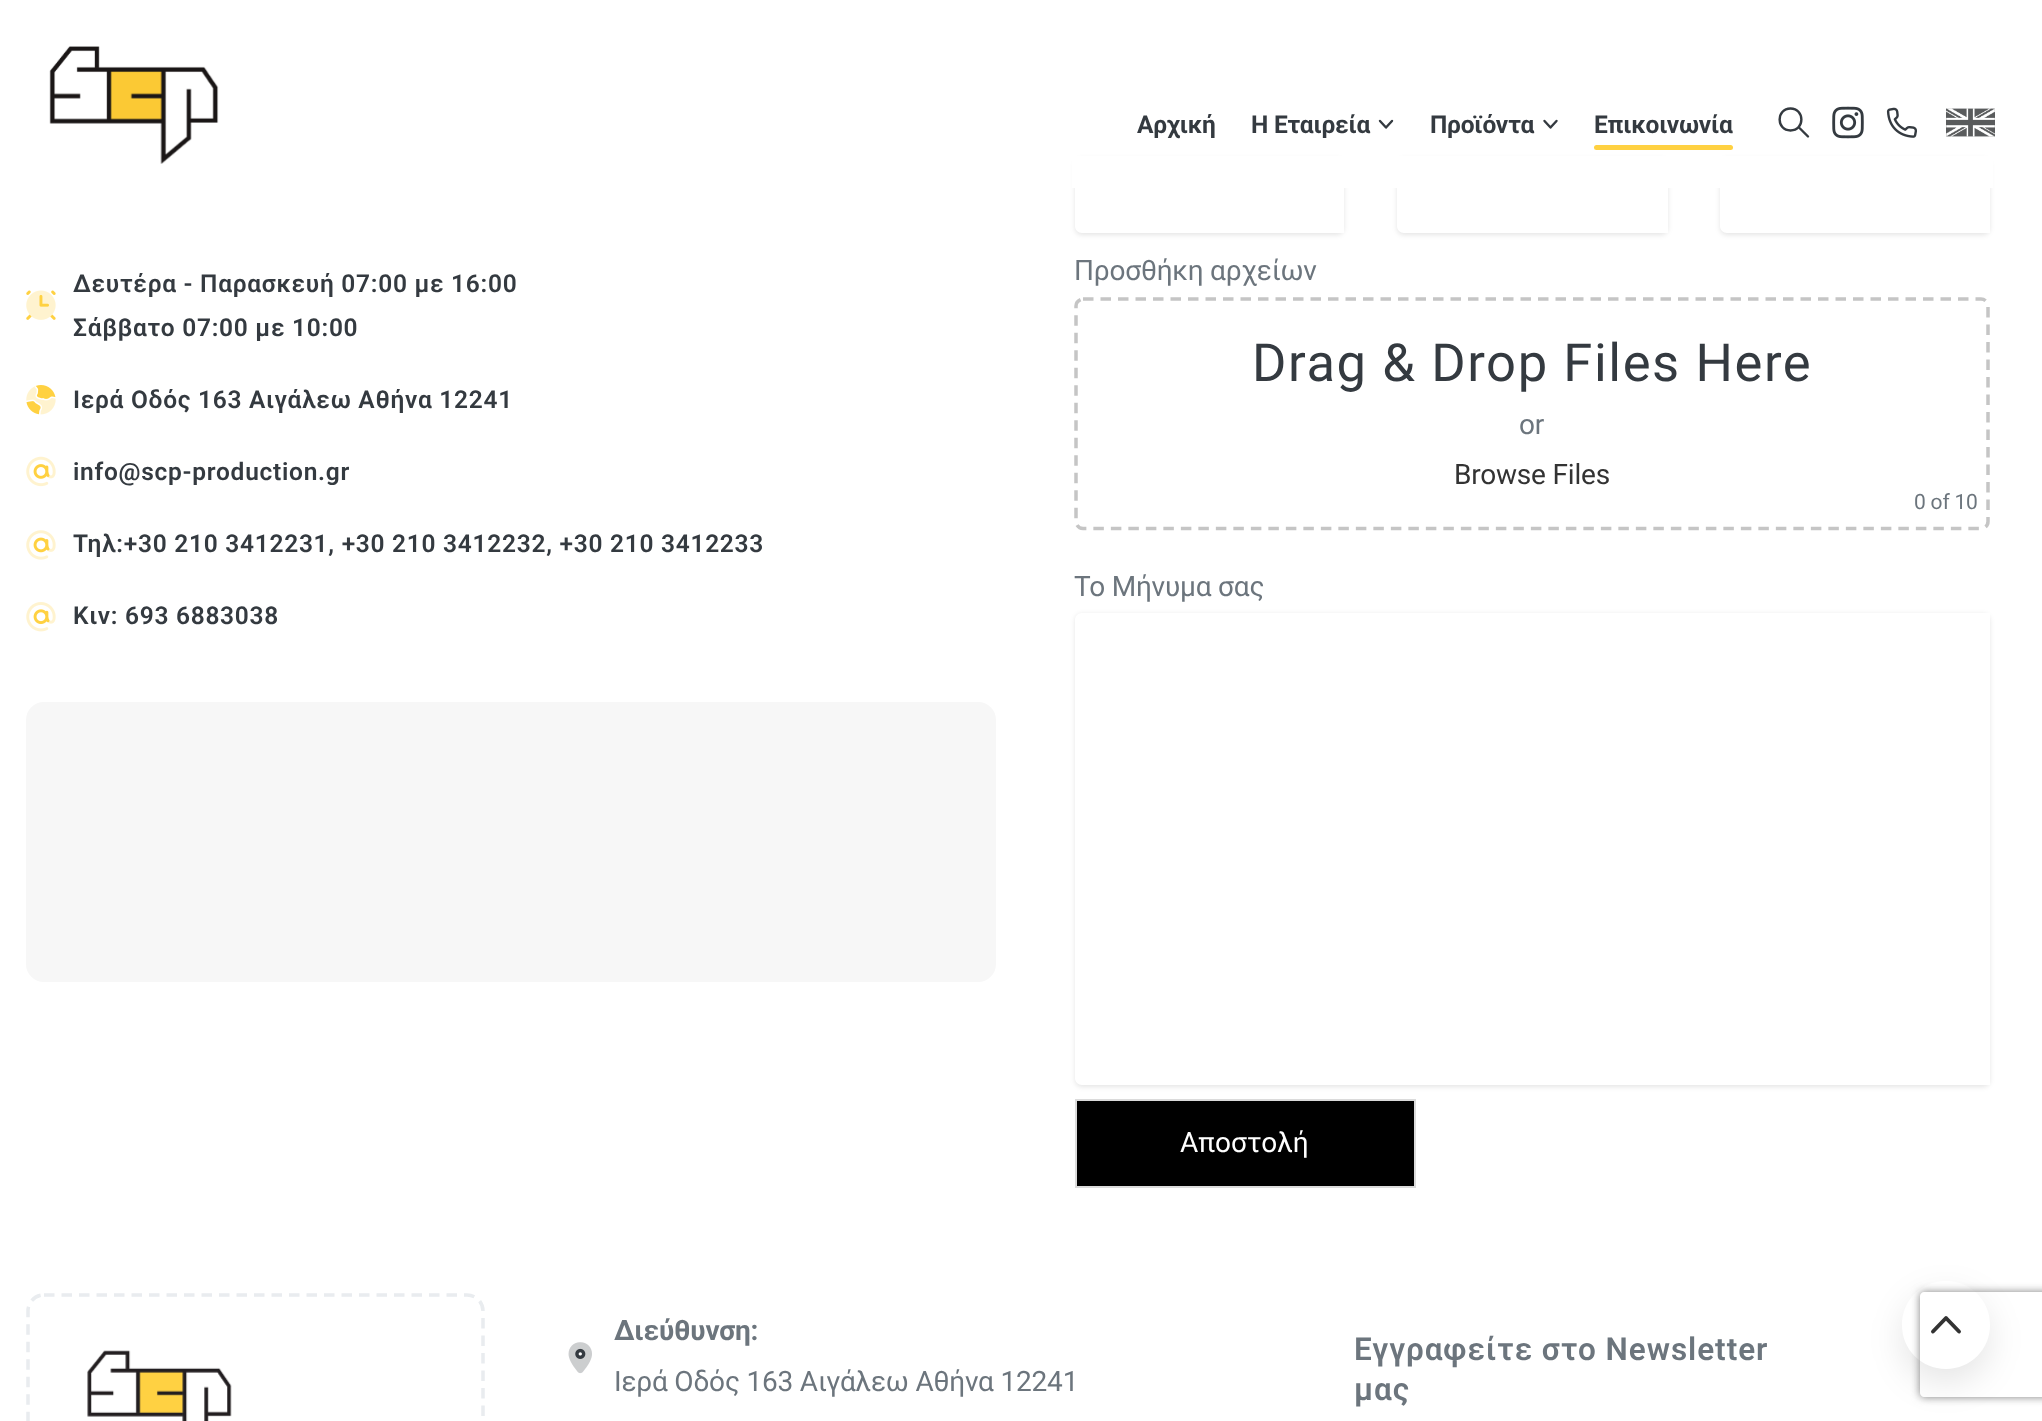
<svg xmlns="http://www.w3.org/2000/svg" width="2042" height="1421">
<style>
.a{font:bold 24.5px Roboto;letter-spacing:-0.2px;fill:#343a40}
.b{font:600 24.5px Roboto;letter-spacing:0.73px;fill:#343a40}
.c{font:28px Roboto;letter-spacing:-0.2px;fill:#6c757d}
.d{font:52.5px Roboto;letter-spacing:1.6px;fill:#343a40}
.e{font:28px Roboto;letter-spacing:-0.2px;fill:#333}
.f{font:21px Roboto;letter-spacing:-0.2px;fill:#6c757d}
.g{font:28px Roboto;fill:#fff}
.h{font:bold 28px Roboto;letter-spacing:-0.2px;fill:#6c757d}
.i{font:600 31.5px Roboto;letter-spacing:0.95px;fill:#6c757d}
</style>
<defs>
<clipPath id="clip1"><path d="M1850 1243h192v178h-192zm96 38c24.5 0 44 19.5 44 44c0 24.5-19.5 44-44 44c-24.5 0-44-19.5-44-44c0-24.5 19.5-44 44-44z" clip-rule="evenodd"/></clipPath>
<clipPath id="clip2"><path d="M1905 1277h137v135h-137zm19 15h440c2 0 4 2 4 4v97c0 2-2 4-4 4h-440c-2 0-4-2-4-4v-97c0-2 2-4 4-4z" clip-rule="evenodd"/></clipPath>
</defs>
<rect width="100%" height="100%" fill="#fff"/>
<rect fill="#0000001a" filter="blur(2.5px)" x="1075" y="159" width="269" height="76" rx="7"/>
<path fill="#fff" d="M1082 158h262v75h-262c-4 0-7-3-7-7v-61c0-4 3-7 7-7z"/>
<rect fill="#0000001a" filter="blur(2.5px)" x="1397" y="159" width="271" height="76" rx="7"/>
<path fill="#fff" d="M1404 158h264v75h-264c-4 0-7-3-7-7v-61c0-4 3-7 7-7z"/>
<rect fill="#0000001a" filter="blur(2.5px)" x="1720" y="159" width="270" height="76" rx="7"/>
<path fill="#fff" d="M1727 158h263v75h-263c-4 0-7-3-7-7v-61c0-4 3-7 7-7z"/>
<path fill="#fff" d="M1072 156h921v32H1072z"/>
<image href="1.png" x="49" y="46" width="170" height="118"/>
<path fill="none" stroke="#343a40" stroke-width="2.4" stroke-linecap="round" stroke-linejoin="round" d="M1380 121l6 6.5l6-6.5"/>
<path fill="none" stroke="#343a40" stroke-width="2.4" stroke-linecap="round" stroke-linejoin="round" d="M1544.5 121l6 6.5l6-6.5"/>
<rect fill="#ffd141" x="1594" y="145" width="139" height="5" rx="2.5"/>
<path fill="none" stroke="#343a40" stroke-width="2.4" stroke-linecap="round" stroke-linejoin="round" d="M1790.5 130.5c14.5 0 14.5-22 0-22c-14.5 0-14.5 22 0 22zm8-3.5l9.5 9.5"/>
<image href="2.png" x="1832" y="106" width="32" height="33"/>
<image href="3.png" x="1886" y="107" width="31" height="31"/>
<image href="4.png" x="1946" y="108" width="49" height="29"/>
<image href="5.png" x="26" y="290" width="30" height="30"/>
<image href="6.png" x="26" y="385" width="30" height="30"/>
<image href="7.png" x="26" y="456" width="30" height="31"/>
<image href="8.png" x="26" y="530" width="30" height="30"/>
<image href="9.png" x="26" y="602" width="30" height="30"/>
<rect fill="#f7f7f7" x="26" y="702" width="970" height="280" rx="18"/>
<path fill="none" stroke="#c5c5c5" stroke-width="3.5" stroke-dasharray="10.5 7" d="M1083 299h898c4 0 7 3.5 7 7v215.5c0 4-3 7-7 7h-898c-3.5 0-7-3-7-7v-215.5c0-3.5 3.5-7 7-7z"/>
<rect fill="#0000001a" filter="blur(2.5px)" x="1075" y="614" width="915" height="473" rx="7"/>
<path fill="#fff" d="M1082 613h908v472h-908c-4 0-7-3-7-7v-458c0-4 3-7 7-7z"/>
<path fill="#000" stroke="#dbdbdb" stroke-width="2" d="M1076 1100h339v87H1076z"/>
<path fill="none" stroke="#e9ecef" stroke-width="3.5" stroke-dasharray="10.5 7" d="M44 1295h423c9 0 16 7 16 16v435.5c0 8.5-7 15.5-16 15.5h-423c-9 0-16-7-16-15.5v-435.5c0-9 7-16 16-16z"/>
<image href="10.png" x="87" y="1350" width="145" height="71"/>
<image href="11.png" x="568" y="1342" width="24" height="32"/>
<g clip-path="url(#clip1)">
<rect fill="#0000001a" filter="blur(17px)" x="1902" y="1295" width="88" height="88" rx="44"/>
</g>
<g clip-path="url(#clip2)">
<rect fill="#808080" filter="blur(4.5px)" x="1920" y="1292" width="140" height="105" rx="4"/>
</g>
<path fill="none" stroke="#333" stroke-width="3.9" stroke-linecap="round" stroke-linejoin="round" d="M1933 1331.5l13-13.5l13 13.5"/>
<text class="a" x="1137" y="133">Αρχική</text>
<text class="a" x="1251" y="133">Η Εταιρεία</text>
<text class="a" x="1430" y="133">Προϊόντα</text>
<text class="a" x="1594" y="133">Επικοινωνία</text>
<text class="b" x="73" y="292">Δευτέρα - Παρασκευή 07:00 με 16:00</text>
<text class="b" x="73" y="336">Σάββατο 07:00 με 10:00</text>
<text class="b" x="73" y="408">Ιερά Οδός 163 Αιγάλεω Αθήνα 12241</text>
<text class="b" x="73" y="480">info@scp-production.gr</text>
<text class="b" x="73" y="552">Τηλ:+30 210 3412231, +30 210 3412232, +30 210 3412233</text>
<text class="b" x="73" y="624">Κιν: 693 6883038</text>
<text class="c" x="1074" y="280">Προσθήκη αρχείων</text>
<text class="d" x="1252" y="381">Drag &amp; Drop Files Here</text>
<text class="c" x="1519" y="434">or</text>
<text class="e" x="1454" y="484">Browse Files</text>
<text class="f" x="1914" y="509">0 of 10</text>
<text class="c" x="1074" y="596">Το Μήνυμα σας</text>
<text class="g" x="1180" y="1152">Αποστολή</text>
<text class="h" x="614" y="1340">Διεύθυνση:</text>
<text class="c" x="614" y="1391">Ιερά Οδός 163 Αιγάλεω Αθήνα 12241</text>
<text class="i" x="1354" y="1360">Εγγραφείτε στο Newsletter</text>
<text class="i" x="1354" y="1400">μας</text>
</svg>
